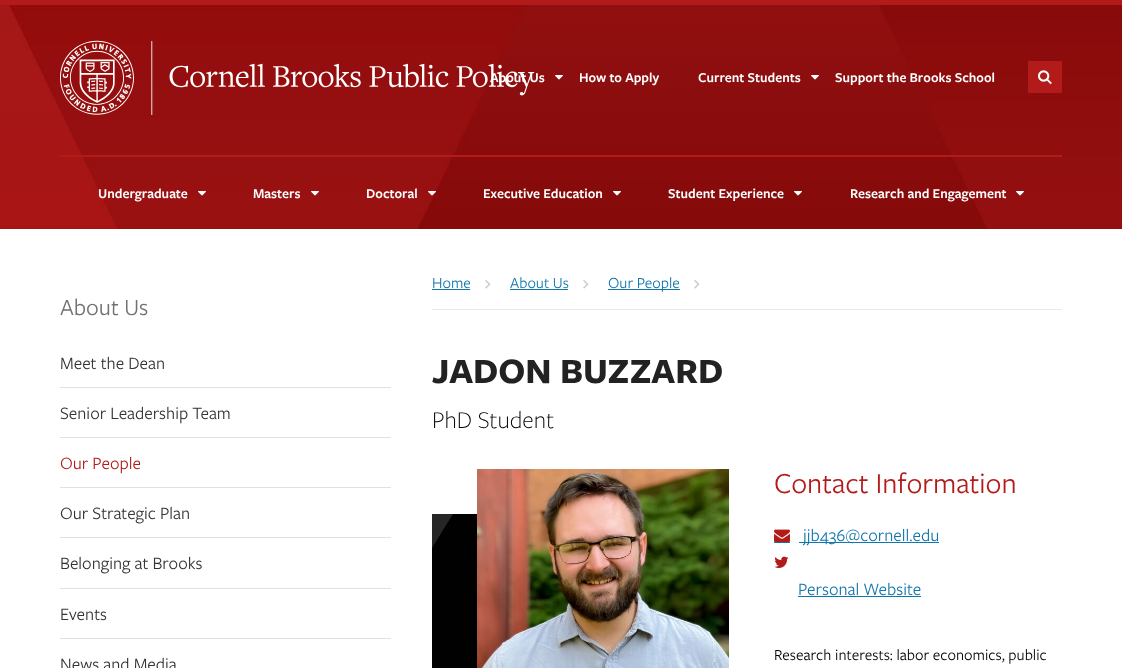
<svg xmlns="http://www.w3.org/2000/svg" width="1122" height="668">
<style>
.a{font:600 14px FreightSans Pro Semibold;fill:#fff}
.b{font:24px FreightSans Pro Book;fill:#707070}
.c{font:18px FreightSans Pro Book;fill:#333}
.d{font:18px FreightSans Pro Book;fill:#b31b1b}
.e{font:16px FreightSans Pro Book;fill:#1176ac}
.f{font:bold 37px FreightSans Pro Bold;fill:#222}
.g{font:300 25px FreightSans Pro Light;fill:#000}
.h{font:30px FreightSans Pro Book;fill:#b31b1b}
.i{font:18px FreightSans Pro Book;fill:#1176ac}
.j{font:16px FreightSans Pro Book;fill:#000}
</style>
<defs>
<clipPath id="clip1"><path d="M432 514h102v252H432z"/></clipPath>
<linearGradient id="g1" gradientUnits="userSpaceOnUse" x1="-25" y1="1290" x2="-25" y2="382"><stop offset="0" stop-color="#000"/><stop offset="1" stop-color="#2d2d2d"/></linearGradient>
</defs>
<rect width="100%" height="100%" fill="#fff"/>
<path fill="#b31b1b" d="M0 0h1122v5H0z"/>
<image href="1.png" x="0" y="5" width="1122" height="224"/>
<image href="2.png" x="60" y="40" width="475" height="75"/>
<image href="3.png" x="555" y="75" width="8" height="5"/>
<image href="3.png" x="811" y="75" width="8" height="5"/>
<path fill="#b31b1b" d="M1028 61h34v32H1028z"/>
<image href="4.png" x="1038" y="70" width="14" height="15"/>
<path fill="#b31b1b" d="M60 155h1002v2H60z"/>
<image href="5.png" x="198" y="191" width="8" height="5"/>
<image href="5.png" x="311" y="191" width="8" height="5"/>
<image href="6.png" x="428" y="191" width="8" height="5"/>
<image href="7.png" x="613" y="191" width="8" height="5"/>
<image href="7.png" x="794" y="191" width="8" height="5"/>
<image href="8.png" x="1016" y="191" width="8" height="5"/>
<path fill="#e1e1e1" d="M60 387h331v1H60z"/>
<path fill="#e1e1e1" d="M60 437h331v1H60z"/>
<path fill="#e1e1e1" d="M60 487h331v1H60z"/>
<path fill="#e1e1e1" d="M60 537h331v1H60z"/>
<path fill="#e1e1e1" d="M60 588h331v1H60z"/>
<path fill="#e1e1e1" d="M60 638h331v1H60z"/>
<path fill="#ebebeb" d="M432 309h630v1H432z"/>
<path fill="#1176ac" d="M432 289h38v1H432z"/>
<image href="9.png" x="485" y="280" width="6" height="9"/>
<path fill="#1176ac" d="M510 289h58v1H510z"/>
<image href="9.png" x="583" y="280" width="6" height="9"/>
<path fill="#1176ac" d="M608 289h72v1H608z"/>
<image href="9.png" x="694" y="280" width="6" height="9"/>
<path fill="#010101" d="M432 514h45v154H432z"/>
<g clip-path="url(#clip1)">
<path fill="url(#g1)" d="M-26 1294l-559-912h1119z"/>
</g>
<image href="10.png" x="477" y="469" width="252" height="199"/>
<path fill="#1176ac" d="M774 542h16v1H774z"/>
<image href="11.png" x="774" y="529" width="16" height="14"/>
<path fill="#1176ac" d="M799 542h140v1H799z"/>
<image href="12.png" x="774" y="556" width="15" height="12"/>
<path fill="#1176ac" d="M798 596h123v1H798z"/>
<text class="a" x="490" y="82">About Us</text>
<text class="a" x="579" y="82">How to Apply</text>
<text class="a" x="698" y="82">Current Students</text>
<text class="a" x="835" y="82">Support the Brooks School</text>
<text class="a" x="98" y="198">Undergraduate</text>
<text class="a" x="253" y="198">Masters</text>
<text class="a" x="366" y="198">Doctoral</text>
<text class="a" x="483" y="198">Executive Education</text>
<text class="a" x="668" y="198">Student Experience</text>
<text class="a" x="850" y="198">Research and Engagement</text>
<text class="b" x="60" y="315">About Us</text>
<text class="c" x="60" y="369">Meet the Dean</text>
<text class="c" x="60" y="419">Senior Leadership Team</text>
<text class="d" x="60" y="469">Our People</text>
<text class="c" x="60" y="519">Our Strategic Plan</text>
<text class="c" x="60" y="569">Belonging at Brooks</text>
<text class="c" x="60" y="620">Events</text>
<text class="c" x="60" y="670">News and Media</text>
<text class="e" x="432" y="288">Home</text>
<text class="e" x="510" y="288">About Us</text>
<text class="e" x="608" y="288">Our People</text>
<text class="f" x="432" y="383">JADON BUZZARD</text>
<text class="g" x="432" y="428">PhD Student</text>
<text class="h" x="774" y="493">Contact Information</text>
<text class="i" x="803" y="541">jjb436@cornell.edu</text>
<text class="i" x="798" y="595">Personal Website</text>
<text class="j" x="774" y="660">Research interests: labor economics, public</text>
</svg>
